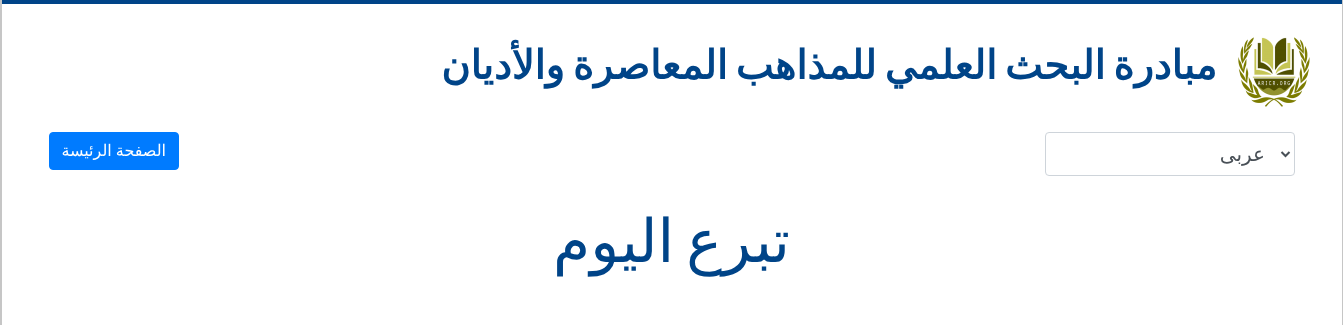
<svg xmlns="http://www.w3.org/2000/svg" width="1343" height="325">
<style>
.a{font:bold 40px DejaVu Sans;direction:rtl;fill:#048}
.b{font:20px DejaVu Sans;direction:rtl;fill:#495057}
.c{font:16px DejaVu Sans;direction:rtl;fill:#fff}
.d{font:60px DejaVu Sans;direction:rtl;fill:#048}
</style>
<rect width="100%" height="100%" fill="#c6c6c6"/>
<path fill="#fff" d="M2 4h1340v321H2z"/>
<path fill="#048" d="M2 0h1340v4H2z"/>
<image href="1.png" x="1238" y="37" width="72" height="70"/>
<rect fill="none" stroke="#ced4da" x="1045.5" y="132.5" width="249" height="43" rx="3.5"/>
<path fill="none" stroke="#495057" stroke-width="2" d="M1281.5 152l4 4l4-4"/>
<rect fill="#007bff" stroke="#007bff" x="49.5" y="132.5" width="129" height="37" rx="3.5"/>
<text class="a" x="1217" y="79" word-spacing="-4.75">مبادرة البحث العلمي للمذاهب المعاصرة والأديان</text>
<text class="b" x="1265" y="161">عربى</text>
<text class="c" x="166" y="156" word-spacing="-1">الصفحة الرئيسة</text>
<text class="d" x="790" y="262" word-spacing="-7">تبرع اليوم</text>
</svg>
